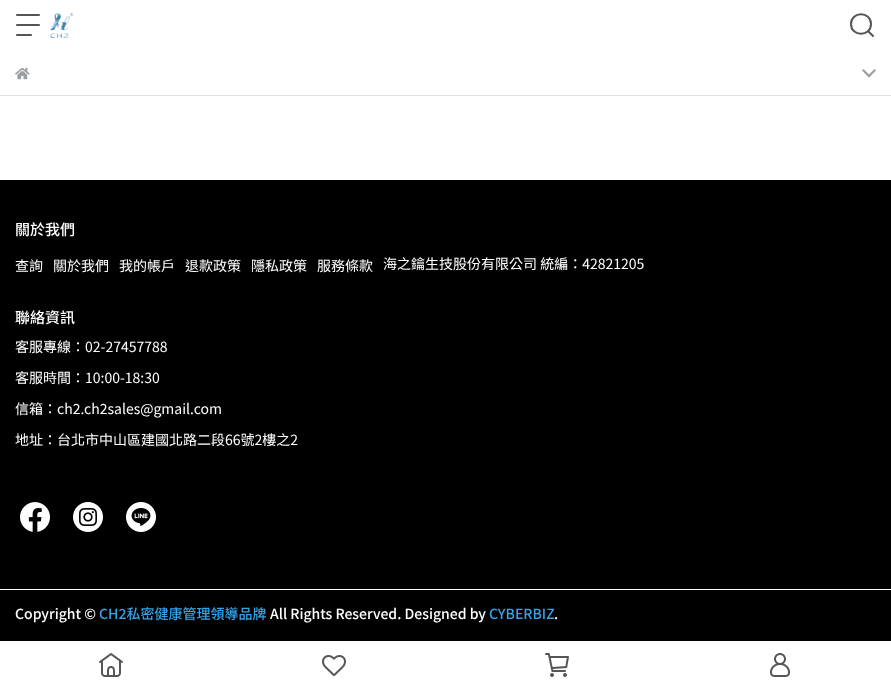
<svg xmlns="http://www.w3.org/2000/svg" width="891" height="689">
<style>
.a{font:500 15px Noto Sans TC;fill:#fff}
.b{font:14px Noto Sans TC;fill:#fff}
.c{font:500 14px Noto Sans TC;fill:#fff}
.d{font:500 14px Noto Sans TC;fill:#33a4e8}
</style>
<rect width="100%" height="100%" fill="#fff"/>
<image href="1.png" x="16" y="14" width="24" height="22"/>
<image href="2.png" x="50" y="12" width="23" height="26"/>
<path fill="none" stroke="#565656" stroke-width="2" stroke-linecap="round" stroke-linejoin="round" d="M871 24c0 13-20 13-20 0c0-13 20-13 20 0zm-2 8l4 4"/>
<image href="3.png" x="99" y="653" width="24" height="24"/>
<image href="4.png" x="322" y="655" width="24" height="21"/>
<image href="5.png" x="545" y="653" width="24" height="24"/>
<image href="6.png" x="770" y="653" width="20" height="24"/>
<path fill="#e2e2e2" d="M0 95h891v1H0z"/>
<image href="7.png" x="15" y="67" width="15" height="13"/>
<path fill="#9a9ea2" d="M867.5 76l7-7l1.5 1.5l-7 7z"/>
<path fill="#9a9ea2" d="M862 70.5l1.5-1.5l7 7l-1.5 1.5z"/>
<path fill="#000" d="M0 180h891v461H0z"/>
<image href="8.png" x="20" y="502" width="30" height="30"/>
<image href="9.png" x="73" y="502" width="30" height="30"/>
<image href="10.png" x="126" y="502" width="30" height="30"/>
<path fill="#fff" d="M0 589h891v1H0z"/>
<text class="a" x="15" y="235">關於我們</text>
<text class="b" x="15" y="271">查詢</text>
<text class="b" x="53" y="271">關於我們</text>
<text class="b" x="119" y="271">我的帳戶</text>
<text class="b" x="185" y="271">退款政策</text>
<text class="b" x="251" y="271">隱私政策</text>
<text class="b" x="317" y="271">服務條款</text>
<text class="b" x="383" y="269">海之鑰生技股份有限公司 統編：42821205</text>
<text class="a" x="15" y="323">聯絡資訊</text>
<text class="b" x="15" y="352">客服專線：02-27457788</text>
<text class="b" x="15" y="383">客服時間：10:00-18:30</text>
<text class="b" x="15" y="414">信箱：ch2.ch2sales@gmail.com</text>
<text class="b" x="15" y="445">地址：台北市中山區建國北路二段66號2樓之2</text>
<text class="c" x="15" y="619">Copyright ©</text>
<text class="d" x="99" y="619">CH2私密健康管理領導品牌</text>
<text class="c" x="270" y="619">All Rights Reserved. Designed by</text>
<text class="d" x="489" y="619">CYBERBIZ</text>
<text class="c" x="554" y="619">.</text>
</svg>
